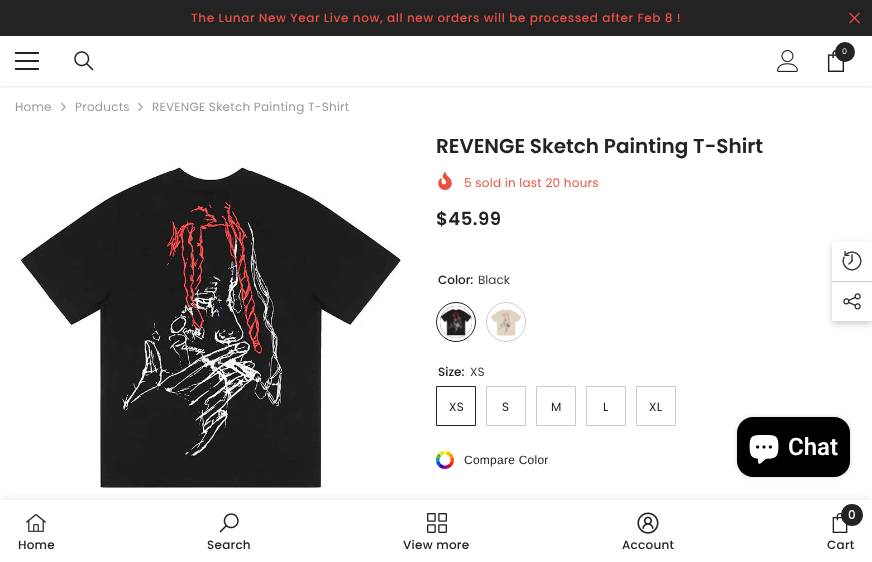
<svg xmlns="http://www.w3.org/2000/svg" width="872" height="562">
<style>
.a{font:500 12px Poppins;letter-spacing:0.6px;fill:#e95144}
.b{font:8px Poppins;fill:#fff}
.c{font:12px Poppins;letter-spacing:0.25px;fill:#999}
.d{font:600 20px Poppins;fill:#232323}
.e{font:12px Poppins;letter-spacing:0.25px;fill:#e95144}
.f{font:600 18px Poppins;letter-spacing:0.5px;fill:#232323}
.g{font:500 12px Poppins;fill:#232323}
.h{font:12px Poppins;fill:#3c3c3c}
.i{font:12px Poppins;letter-spacing:0.25px;fill:#232323}
.j{font:12px Liberation Sans;letter-spacing:0.25px;fill:#232323}
.k{font:500 12px Poppins;letter-spacing:0.25px;fill:#232323}
.l{font:500 12px Poppins;fill:#fff}
.m{font:600 24px Roboto;fill:#fff}
</style>
<defs>
<clipPath id="clip1"><path d="M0 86h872v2H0z"/></clipPath>
<clipPath id="clip2"><path d="M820 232h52v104h-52zm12 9h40v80h-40z" clip-rule="evenodd"/></clipPath>
</defs>
<rect width="100%" height="100%" fill="#fff"/>
<path fill="#232323" d="M0 0h872v36H0z"/>
<image href="1.png" x="849" y="12" width="11" height="12"/>
<g clip-path="url(#clip1)">
<path fill="#0000001a" filter="blur(1.5px)" d="M0 37h872v50H0z"/>
</g>
<path fill="#232323" d="M15 60h24v2H15z"/>
<path fill="#232323" d="M15 52h24v2H15z"/>
<path fill="#232323" d="M15 68h24v2H15z"/>
<image href="2.png" x="74" y="51" width="20" height="20"/>
<image href="3.png" x="777" y="50" width="21" height="22"/>
<image href="4.png" x="827" y="50" width="18" height="22"/>
<circle fill="#232323" cx="845" cy="52" r="10"/>
<image href="5.png" x="61" y="102" width="5" height="10"/>
<image href="5.png" x="138" y="102" width="5" height="10"/>
<image href="6.png" x="20" y="167" width="384" height="321"/>
<image href="7.png" x="438" y="172" width="14" height="18"/>
<circle fill="none" stroke="#232323" cx="456" cy="322" r="19.5"/>
<circle fill="#000" cx="456" cy="322" r="16"/>
<image href="8.png" x="440" y="306" width="32" height="32"/>
<circle fill="none" stroke="#cbcbcb" cx="506" cy="322" r="19.5"/>
<image href="9.png" x="490" y="309" width="32" height="27"/>
<path fill="none" stroke="#232323" d="M436.5 386.5h39v39H436.5z"/>
<path fill="none" stroke="#cbcbcb" d="M486.5 386.5h39v39H486.5z"/>
<path fill="none" stroke="#cbcbcb" d="M536.5 386.5h39v39H536.5z"/>
<path fill="none" stroke="#cbcbcb" d="M586.5 386.5h39v39H586.5z"/>
<path fill="none" stroke="#cbcbcb" d="M636.5 386.5h39v39H636.5z"/>
<image href="10.png" x="436" y="451" width="18" height="18"/>
<path fill="#0000001f" filter="blur(4.5px)" d="M0 500h872v62H0z"/>
<path fill="#fff" d="M0 500h872v62H0z"/>
<image href="11.png" x="26" y="514" width="20" height="18"/>
<image href="12.png" x="219" y="513" width="20" height="20"/>
<image href="13.png" x="427" y="513" width="20" height="20"/>
<image href="14.png" x="637" y="512" width="22" height="22"/>
<image href="15.png" x="832" y="513" width="16" height="20"/>
<circle fill="#232323" cx="852" cy="515" r="11"/>
<g clip-path="url(#clip2)">
<path fill="#00000033" filter="blur(3.5px)" d="M832 244h40v80H832z"/>
</g>
<image href="16.png" x="842" y="251" width="20" height="20"/>
<path fill="#ccc" d="M832 281h40v1H832z"/>
<image href="17.png" x="843" y="293" width="18" height="17"/>
<rect fill="#00000026" filter="blur(2.5px)" x="737" y="417" width="113" height="60" rx="16"/>
<rect fill="#000" x="737" y="417" width="113" height="60" rx="16"/>
<image href="18.png" x="749" y="435" width="30" height="29"/>
<text class="a" x="191" y="22">The Lunar New Year Live now, all new orders will be processed after Feb 8 !</text>
<text class="b" x="842" y="54">0</text>
<text class="c" x="15" y="111">Home</text>
<text class="c" x="75" y="111">Products</text>
<text class="c" x="152" y="111">REVENGE Sketch Painting T-Shirt</text>
<text class="d" x="436" y="153">REVENGE Sketch Painting T-Shirt</text>
<text class="e" x="464" y="187">5 sold in last 20 hours</text>
<text class="f" x="436" y="225">$45.99</text>
<text class="g" x="438" y="284">Color:</text>
<text class="h" x="478" y="284">Black</text>
<text class="g" x="438" y="376">Size:</text>
<text class="h" x="470" y="376">XS</text>
<text class="i" x="449" y="411">XS</text>
<text class="i" x="502" y="411">S</text>
<text class="i" x="551" y="411">M</text>
<text class="i" x="603" y="411">L</text>
<text class="i" x="649" y="411">XL</text>
<text class="j" x="464" y="464">Compare Color</text>
<text class="k" x="18" y="549">Home</text>
<text class="k" x="207" y="549">Search</text>
<text class="k" x="403" y="549">View more</text>
<text class="k" x="622" y="549">Account</text>
<text class="l" x="848" y="519">0</text>
<text class="k" x="827" y="549">Cart</text>
<text class="m" x="788" y="455">Chat</text>
</svg>
